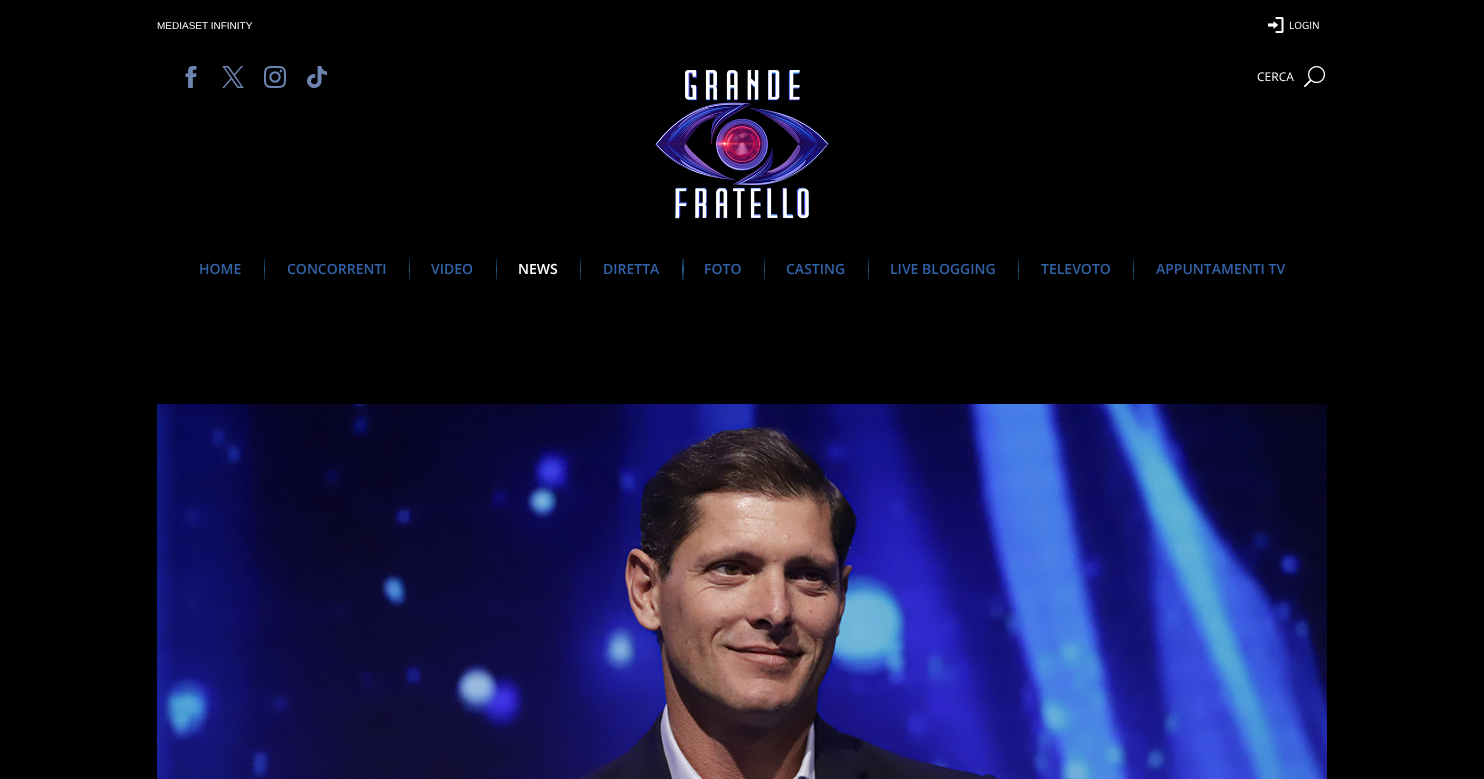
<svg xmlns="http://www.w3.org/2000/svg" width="1484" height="779">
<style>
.a{font:10px Liberation Sans;fill:#fff}
.b{font:10px Open Sans;fill:#fff}
.c{font:12px Open Sans;fill:#fff}
.d{font:600 14px Open Sans;fill:#3362a8}
.e{font:600 14px Open Sans;fill:#fff}
</style>
<rect width="100%" height="100%" fill="#000"/>
<image href="1.png" x="1268" y="17" width="16" height="16"/>
<image href="2.png" x="185" y="66" width="12" height="22"/>
<image href="3.png" x="222" y="66" width="22" height="22"/>
<image href="4.png" x="264" y="66" width="22" height="22"/>
<image href="5.png" x="307" y="66" width="20" height="22"/>
<image href="6.png" x="1304" y="66" width="22" height="21"/>
<image href="7.png" x="264" y="259" width="1" height="21"/>
<image href="7.png" x="409" y="259" width="1" height="21"/>
<image href="7.png" x="496" y="259" width="1" height="21"/>
<image href="7.png" x="580" y="259" width="1" height="21"/>
<image href="8.png" x="682" y="259" width="2" height="21"/>
<image href="7.png" x="764" y="259" width="1" height="21"/>
<image href="7.png" x="868" y="259" width="1" height="21"/>
<image href="7.png" x="1018" y="259" width="1" height="21"/>
<image href="7.png" x="1133" y="259" width="1" height="21"/>
<image href="9.png" x="655" y="70" width="174" height="149"/>
<image href="10.png" x="157" y="404" width="1170" height="375"/>
<text class="a" x="157" y="29">MEDIASET INFINITY</text>
<text class="b" x="1289" y="29">LOGIN</text>
<text class="c" x="1257" y="81">CERCA</text>
<text class="d" x="199" y="274">HOME</text>
<text class="d" x="287" y="274">CONCORRENTI</text>
<text class="d" x="431" y="274">VIDEO</text>
<text class="e" x="518" y="274">NEWS</text>
<text class="d" x="603" y="274">DIRETTA</text>
<text class="d" x="704" y="274">FOTO</text>
<text class="d" x="786" y="274">CASTING</text>
<text class="d" x="890" y="274">LIVE BLOGGING</text>
<text class="d" x="1041" y="274">TELEVOTO</text>
<text class="d" x="1156" y="274">APPUNTAMENTI TV</text>
</svg>
